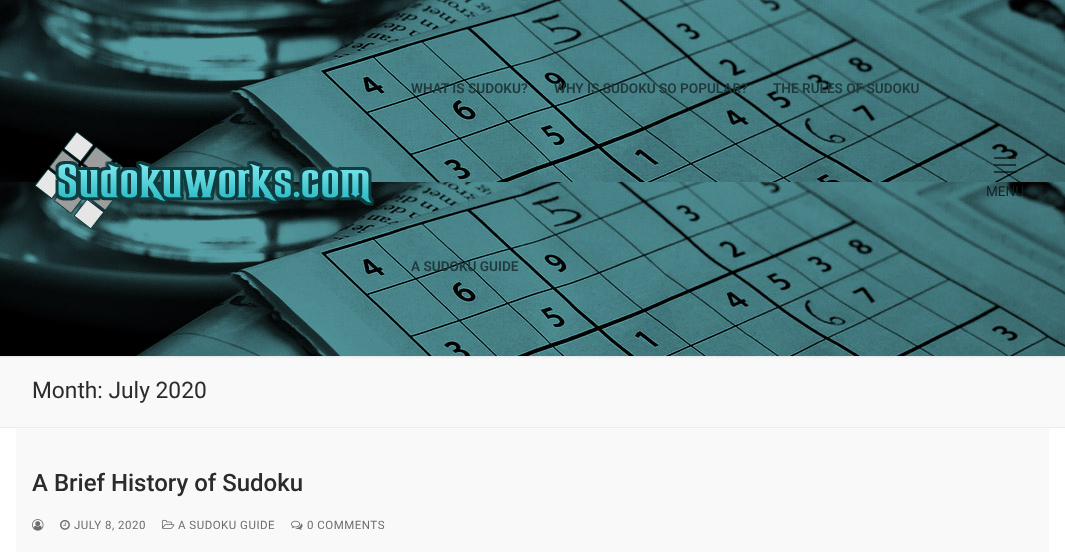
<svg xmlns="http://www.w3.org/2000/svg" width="1065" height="552">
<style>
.a{font:600 13.6px Roboto;fill:#1f393c}
.b{font:13.6px Roboto;fill:#122122}
.c{font:22.75px Roboto;fill:#2b2b2b}
.d{font:500 24px Roboto;fill:#2b2b2b}
.e{font:11.5px Roboto;letter-spacing:0.5px;fill:#6d6d6d}
</style>
<rect width="100%" height="100%" fill="#f9f9f9"/>
<path fill="#e1e5ea" filter="blur(1px)" d="M0 1h1065v356H0z"/>
<image href="1.png" x="0" y="0" width="1065" height="356"/>
<image href="2.png" x="35" y="131" width="340" height="98"/>
<path fill="#0000008c" d="M994 164h22v2H994z"/>
<path fill="#0000008c" d="M994 157h22v2H994z"/>
<path fill="#0000008c" d="M994 171h22v2H994z"/>
<path fill="#eaecee" d="M0 427h1065v1H0z"/>
<path fill="#fff" d="M0 428h1065v124H0z"/>
<path fill="#f9f9f9" d="M16 428h1033v124H16z"/>
<image href="3.png" x="32" y="519" width="12" height="12"/>
<image href="4.png" x="60" y="520" width="10" height="10"/>
<image href="5.png" x="162" y="519" width="13" height="10"/>
<image href="6.png" x="291" y="520" width="12" height="10"/>
<text class="a" x="411" y="93">WHAT IS SUDOKU?</text>
<text class="a" x="554" y="93">WHY IS SUDOKU SO POPULAR?</text>
<text class="a" x="773" y="93">THE RULES OF SUDOKU</text>
<text class="a" x="411" y="271">A SUDOKU GUIDE</text>
<text class="b" x="986" y="196">MENU</text>
<text class="c" x="32" y="398">Month: July 2020</text>
<text class="d" x="32" y="491">A Brief History of Sudoku</text>
<text class="e" x="74" y="529">JULY 8, 2020</text>
<text class="e" x="178" y="529">A SUDOKU GUIDE</text>
<text class="e" x="307" y="529">0 COMMENTS</text>
</svg>
